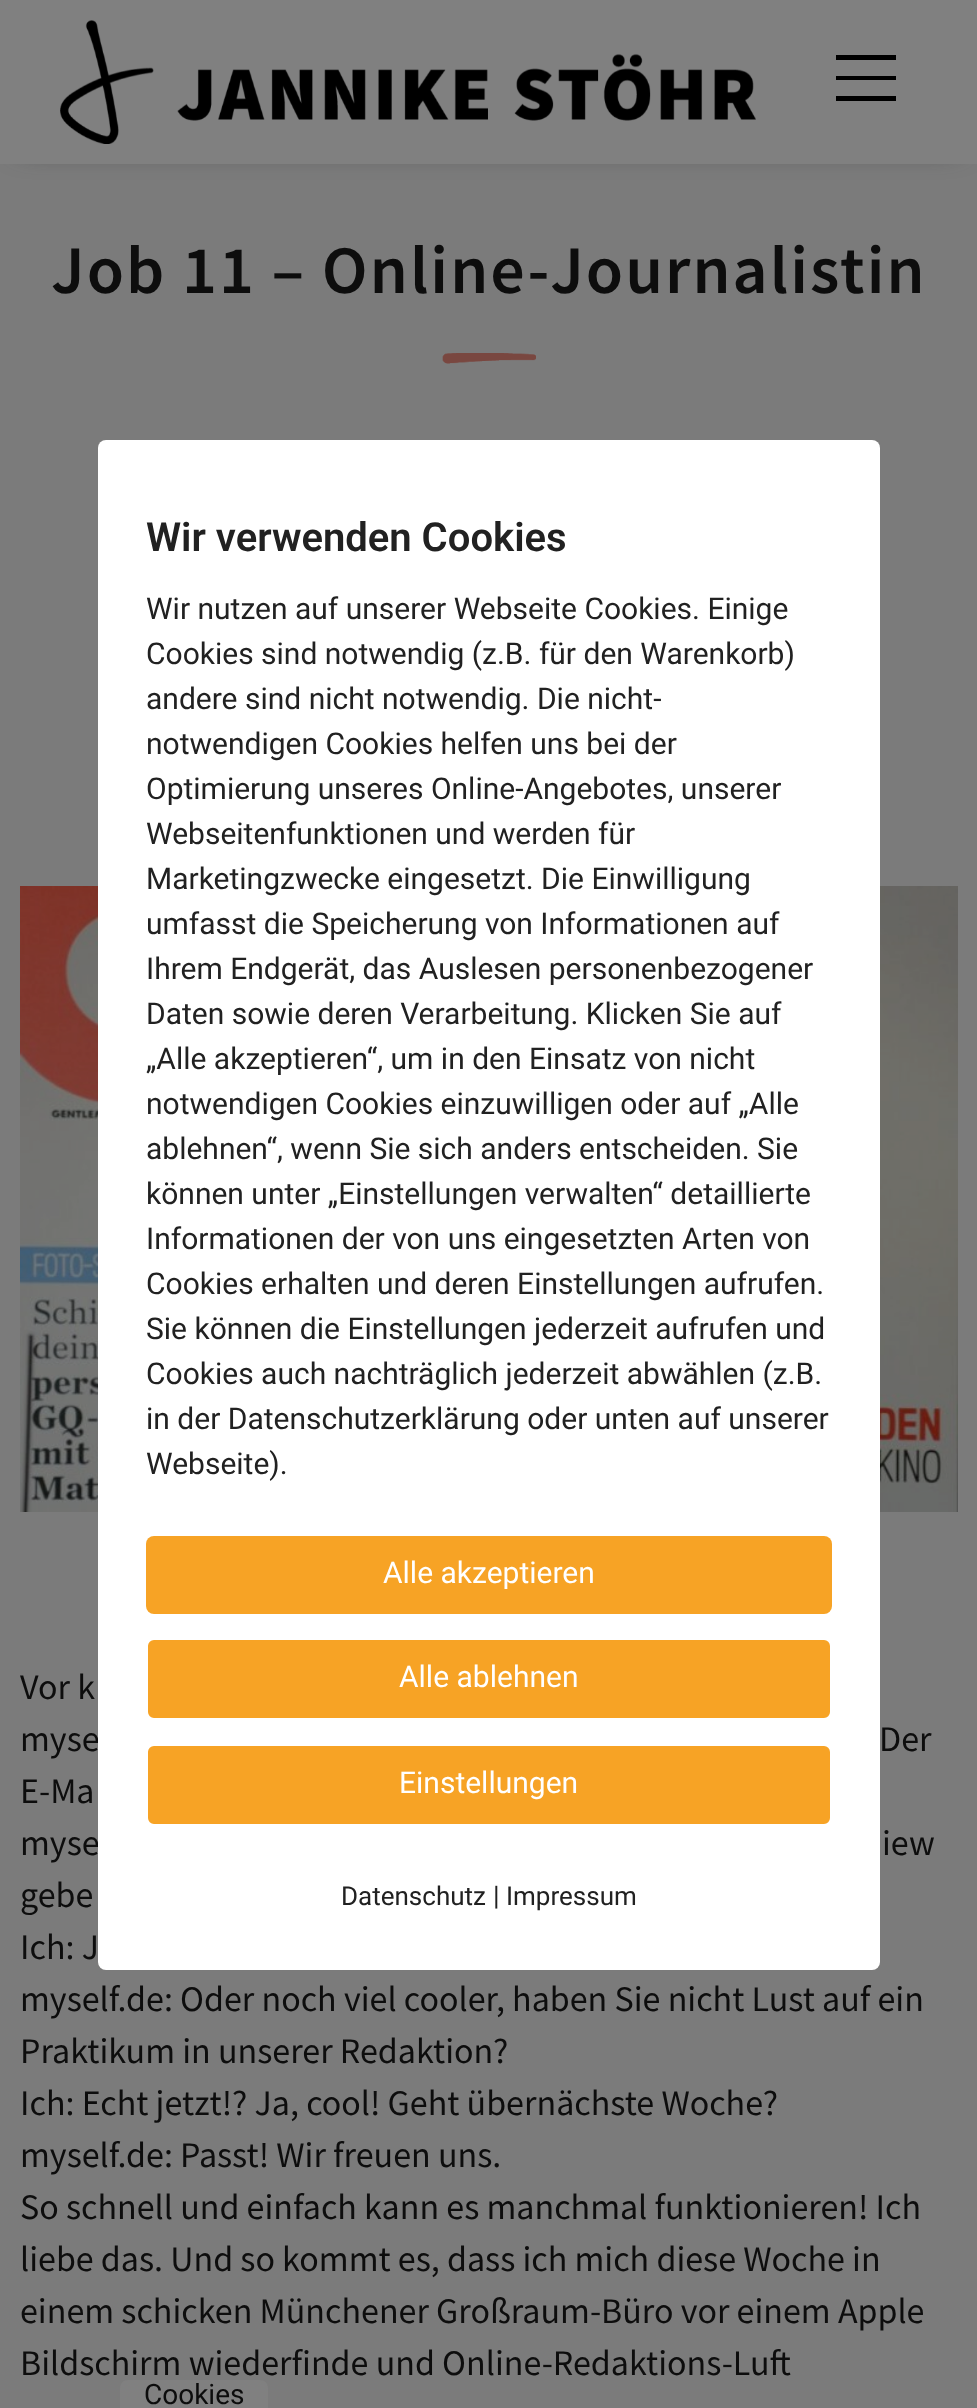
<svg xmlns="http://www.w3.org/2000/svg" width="977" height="2408">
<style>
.a{font:600 68px Source Sans Pro;letter-spacing:2.05px;fill:#0d0d0d}
.b{font:36px Source Sans Pro;fill:#0d0d0d}
.c{font:600 40px Roboto;fill:#212121}
.d{font:30px Roboto;fill:#212121}
.e{font:30px Roboto;fill:#fff}
.f{font:26px Roboto;fill:#212121}
.g{font:27px Roboto;fill:#212121}
.h{font:28px Roboto;fill:#0d0d0d}
</style>
<rect width="100%" height="100%" fill="#7b7b7b"/>
<path fill="#26282c" filter="blur(15px)" d="M20 20h938v124H20z"/>
<path fill="#808080" d="M0 0h977v164H0z"/>
<image href="1.png" x="60" y="20" width="696" height="124"/>
<path fill="#000" d="M836 55v5h60v-5zm0 21v4h60v-4zm0 20v5h60v-5z"/>
<image href="2.png" x="442" y="353" width="94" height="11"/>
<image href="3.png" x="20" y="886" width="938" height="626"/>
<path fill="#808080" d="M128 2380h132c4.5 0 8 3.5 8 8v20h-148v-20c0-4.5 3.5-8 8-8z"/>
<text class="a" x="51" y="293">Job 11 – Online-Journalistin</text>
<text class="b" x="20" y="1699">Vor k</text>
<text class="b" x="20" y="1751">myse</text>
<text class="b" x="879" y="1751">Der</text>
<text class="b" x="20" y="1803">E-Ma</text>
<text class="b" x="20" y="1855">myse</text>
<text class="b" x="882" y="1855">iew</text>
<text class="b" x="20" y="1907">gebe</text>
<text class="b" x="20" y="1959">Ich: J</text>
<text class="b" x="20" y="2011">myself.de: Oder noch viel cooler, haben Sie nicht Lust auf ein</text>
<text class="b" x="20" y="2063">Praktikum in unserer Redaktion?</text>
<text class="b" x="20" y="2115">Ich: Echt jetzt!? Ja, cool! Geht übernächste Woche?</text>
<text class="b" x="20" y="2167">myself.de: Passt! Wir freuen uns.</text>
<text class="b" x="20" y="2219">So schnell und einfach kann es manchmal funktionieren! Ich</text>
<text class="b" x="20" y="2271">liebe das. Und so kommt es, dass ich mich diese Woche in</text>
<text class="b" x="20" y="2323">einem schicken Münchener Großraum-Büro vor einem Apple</text>
<text class="b" x="20" y="2375">Bildschirm wiederfinde und Online-Redaktions-Luft</text>
<rect fill="#fff" x="98" y="440" width="782" height="1530" rx="8"/>
<text class="c" x="146" y="551">Wir verwenden Cookies</text>
<text class="d" x="146" y="619">Wir nutzen auf unserer Webseite Cookies. Einige</text>
<text class="d" x="146" y="664">Cookies sind notwendig (z.B. für den Warenkorb)</text>
<text class="d" x="146" y="709">andere sind nicht notwendig. Die nicht-</text>
<text class="d" x="146" y="754">notwendigen Cookies helfen uns bei der</text>
<text class="d" x="146" y="799">Optimierung unseres Online-Angebotes, unserer</text>
<text class="d" x="146" y="844">Webseitenfunktionen und werden für</text>
<text class="d" x="146" y="889">Marketingzwecke eingesetzt. Die Einwilligung</text>
<text class="d" x="146" y="934">umfasst die Speicherung von Informationen auf</text>
<text class="d" x="146" y="979">Ihrem Endgerät, das Auslesen personenbezogener</text>
<text class="d" x="146" y="1024">Daten sowie deren Verarbeitung. Klicken Sie auf</text>
<text class="d" x="146" y="1069">„Alle akzeptieren“, um in den Einsatz von nicht</text>
<text class="d" x="146" y="1114">notwendigen Cookies einzuwilligen oder auf „Alle</text>
<text class="d" x="146" y="1159">ablehnen“, wenn Sie sich anders entscheiden. Sie</text>
<text class="d" x="146" y="1204">können unter „Einstellungen verwalten“ detaillierte</text>
<text class="d" x="146" y="1249">Informationen der von uns eingesetzten Arten von</text>
<text class="d" x="146" y="1294">Cookies erhalten und deren Einstellungen aufrufen.</text>
<text class="d" x="146" y="1339">Sie können die Einstellungen jederzeit aufrufen und</text>
<text class="d" x="146" y="1384">Cookies auch nachträglich jederzeit abwählen (z.B.</text>
<text class="d" x="146" y="1429">in der Datenschutzerklärung oder unten auf unserer</text>
<text class="d" x="146" y="1474">Webseite).</text>
<rect fill="#f7a325" x="146" y="1536" width="686" height="78" rx="8"/>
<text class="e" x="383" y="1583">Alle akzeptieren</text>
<rect fill="#f7a325" stroke="#fff" stroke-width="2" x="147" y="1639" width="684" height="80" rx="7"/>
<text class="e" x="399" y="1687">Alle ablehnen</text>
<rect fill="#f7a325" stroke="#fff" stroke-width="2" x="147" y="1745" width="684" height="80" rx="7"/>
<text class="e" x="399" y="1793">Einstellungen</text>
<text class="f" x="341" y="1905">Datenschutz</text>
<text class="g" x="493" y="1905">|</text>
<text class="f" x="506" y="1905">Impressum</text>
<text class="h" x="144" y="2404">Cookies</text>
</svg>
